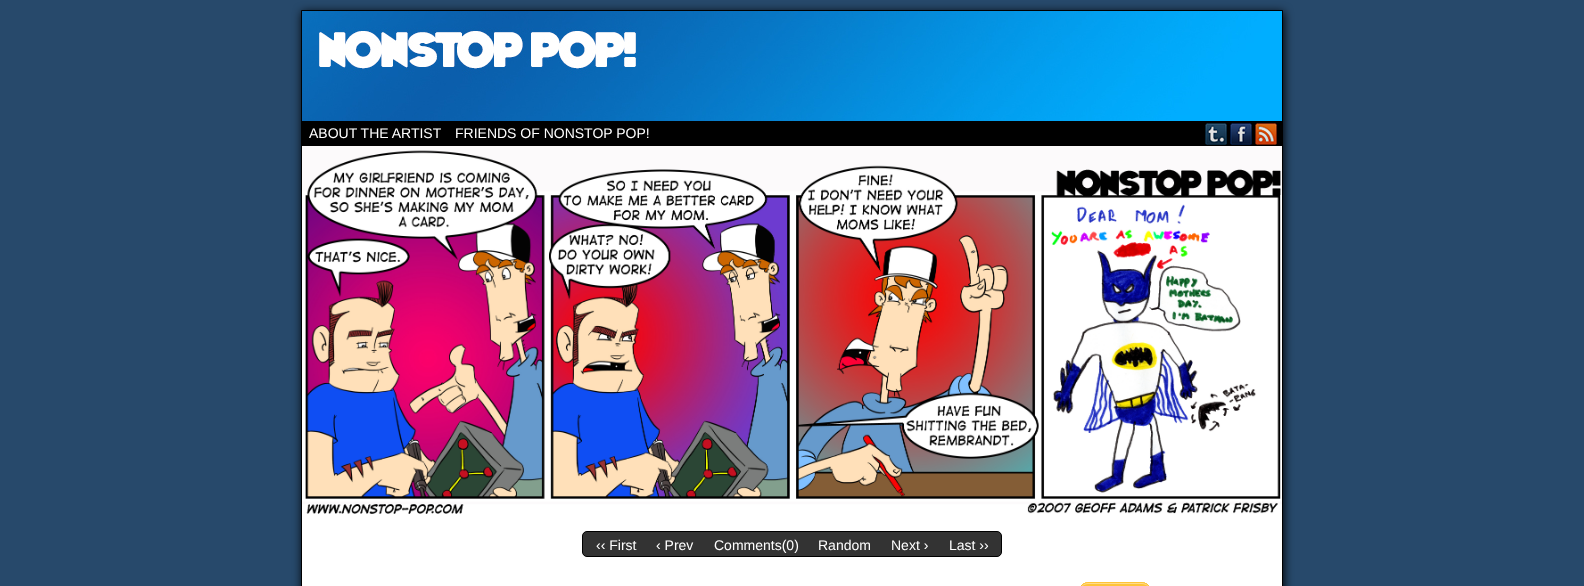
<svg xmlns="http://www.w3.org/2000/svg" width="1584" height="586">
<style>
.a{font:14px Liberation Sans;fill:#fff}
</style>
<rect width="100%" height="100%" fill="#27496b"/>
<path fill="#000" filter="blur(5px)" d="M302 12h982v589H302z"/>
<path fill="#fff" d="M302 514h980v72H302z"/>
<path fill="none" stroke="#000" d="M301.5 10.5h981v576H301.5z"/>
<image href="1.png" x="302" y="11" width="980" height="110"/>
<path fill="#000" d="M302 121h980v25H302z"/>
<image href="2.png" x="1205" y="123" width="22" height="22"/>
<image href="3.png" x="1230" y="123" width="22" height="22"/>
<image href="4.png" x="1255" y="123" width="22" height="22"/>
<image href="5.png" x="302" y="146" width="980" height="368"/>
<rect fill="#333" stroke="#000" x="582.5" y="531.5" width="419" height="25" rx="4.5"/>
<image href="6.png" x="1081" y="582" width="68" height="4"/>
<text class="a" x="309" y="138">ABOUT THE ARTIST</text>
<text class="a" x="455" y="138">FRIENDS OF NONSTOP POP!</text>
<text class="a" x="596" y="550">‹‹ First</text>
<text class="a" x="656" y="550">‹ Prev</text>
<text class="a" x="714" y="550">Comments(0)</text>
<text class="a" x="818" y="550">Random</text>
<text class="a" x="891" y="550">Next ›</text>
<text class="a" x="949" y="550">Last ››</text>
</svg>
